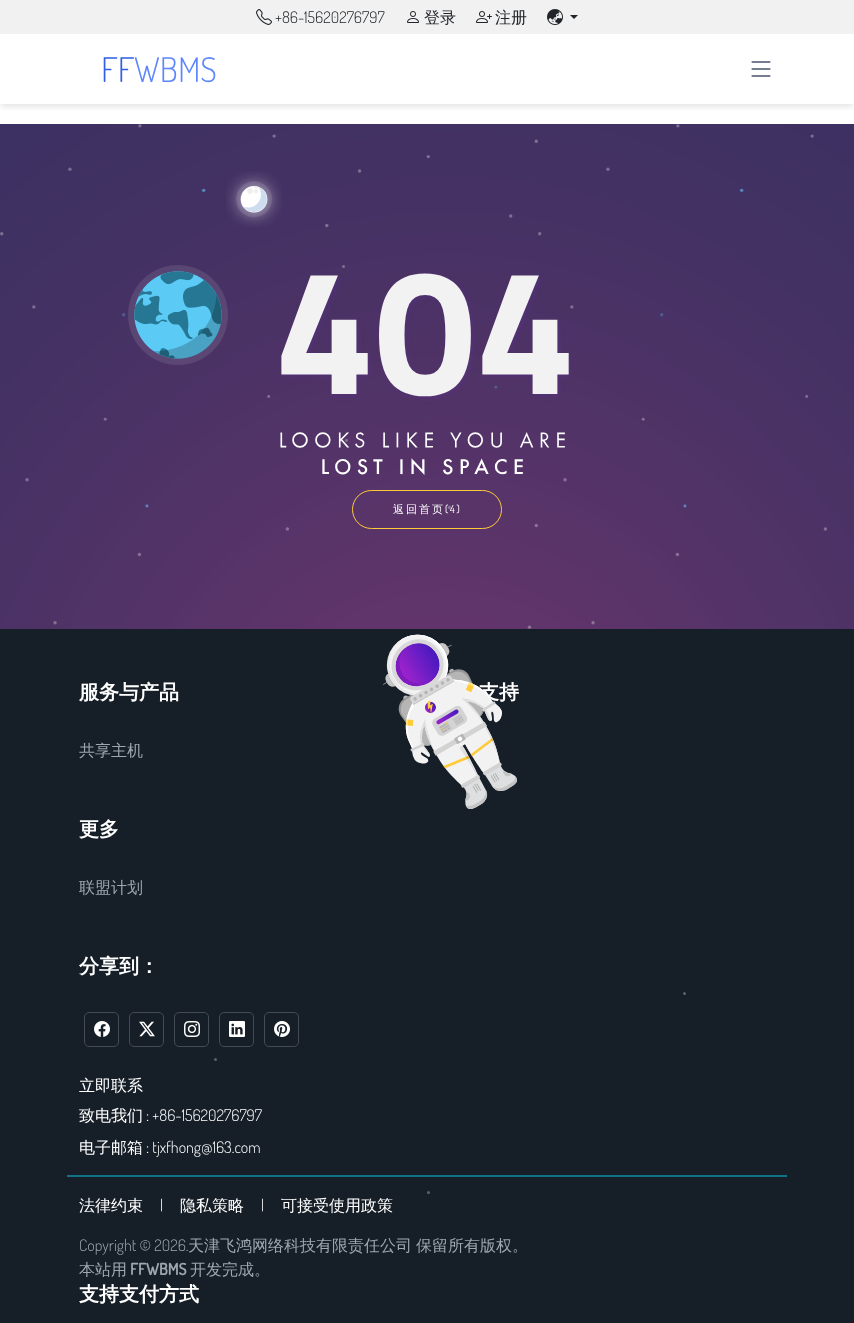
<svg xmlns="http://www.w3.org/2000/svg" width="854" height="1323">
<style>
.a{font:300 16px Dosis;fill:#212529}
.b{font:500 16px WenQuanYi Zen Hei;fill:#212529}
.c{font:300 34px Dosis;fill:#3061e4}
.d{font:300 34px Dosis;fill:#5e87fe}
.e{font:500 11px WenQuanYi Zen Hei;letter-spacing:2px;fill:#fff}
.f{font:11px Dosis;letter-spacing:2px;fill:#fff}
.g{font:bold 20px WenQuanYi Zen Hei;fill:#fff}
.h{font:500 16px WenQuanYi Zen Hei;fill:#9da7b0}
.i{font:500 16px WenQuanYi Zen Hei;fill:#fff}
.j{font:300 16px Dosis;fill:#fff}
.k{font:300 16px Dosis;fill:#9da7b0}
.l{font:bold 16px Dosis;fill:#9da7b0}
</style>
<defs>
<clipPath id="clip1"><path d="M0 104h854v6H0z"/></clipPath>
</defs>
<rect width="100%" height="100%" fill="#fff"/>
<path fill="#f1f1f2" d="M0 0h854v34H0z"/>
<image href="1.png" x="256" y="9" width="16" height="16"/>
<image href="2.png" x="407" y="11" width="12" height="12"/>
<image href="3.png" x="476" y="11" width="16" height="12"/>
<image href="4.png" x="547" y="9" width="16" height="16"/>
<path fill="#212529" d="M570 15h8l-4 4z"/>
<g clip-path="url(#clip1)">
<path fill="#0000001a" filter="blur(3px)" d="M1 39h852v68H1z"/>
</g>
<image href="5.png" x="751" y="61" width="20" height="16"/>
<image href="6.png" x="0" y="124" width="854" height="505"/>
<image href="7.png" x="0" y="124" width="827" height="505"/>
<image href="8.png" x="226" y="171" width="56" height="56"/>
<image href="9.png" x="128" y="265" width="100" height="100"/>
<circle fill="#7f7093" cx="343.5" cy="266.5" r="1.5"/>
<path fill="#161e27" d="M0 629h854v694H0z"/>
<circle fill="#5c6268" cx="684.5" cy="993.5" r="1.5"/>
<circle fill="#5c6268" cx="215.5" cy="1059.5" r="1.5"/>
<circle fill="#5c6268" cx="428.5" cy="1192.5" r="1.5"/>
<image href="11.png" x="280" y="273" width="292" height="202"/>
<rect fill="none" stroke="#ffcb39" x="352.5" y="490.5" width="149" height="38" rx="19"/>
<rect fill="none" stroke="#454b52" x="84.5" y="1012.5" width="34" height="34" rx="4.5"/>
<image href="12.png" x="94" y="1021" width="16" height="16"/>
<rect fill="none" stroke="#454b52" x="129.5" y="1012.5" width="34" height="34" rx="4.5"/>
<image href="13.png" x="139" y="1021" width="16" height="16"/>
<rect fill="none" stroke="#454b52" x="174.5" y="1012.5" width="34" height="34" rx="4.5"/>
<image href="14.png" x="184" y="1021" width="16" height="16"/>
<rect fill="none" stroke="#454b52" x="219.5" y="1012.5" width="34" height="34" rx="4.5"/>
<image href="15.png" x="229" y="1021" width="16" height="16"/>
<rect fill="none" stroke="#454b52" x="264.5" y="1012.5" width="34" height="34" rx="4.5"/>
<image href="16.png" x="274" y="1021" width="16" height="16"/>
<path fill="#137386" d="M67 1175h720v2H67z"/>
<text class="a" x="275" y="23">+86-15620276797</text>
<text class="b" x="424" y="23">登录</text>
<text class="b" x="495" y="23">注册</text>
<text class="c" x="101" y="82">FF</text>
<text class="d" x="134" y="82">WBMS</text>
<text class="e" x="393" y="513">返回首页</text>
<text class="f" x="445" y="513">(4)</text>
<text class="g" x="79" y="699">服务与产品</text>
<text class="h" x="79" y="756">共享主机</text>
<text class="g" x="479" y="699">支持</text>
<image href="10.png" x="383" y="634" width="134" height="175"/>
<text class="g" x="79" y="836">更多</text>
<text class="h" x="79" y="893">联盟计划</text>
<text class="g" x="79" y="973">分享到：</text>
<text class="i" x="79" y="1091">立即联系</text>
<text class="i" x="79" y="1121">致电我们</text>
<text class="j" x="146" y="1121">: +86-15620276797</text>
<text class="i" x="79" y="1153">电子邮箱</text>
<text class="j" x="146" y="1153">: tjxfhong@163.com</text>
<text class="i" x="79" y="1211">法律约束</text>
<text class="j" x="160" y="1211">|</text>
<text class="i" x="180" y="1211">隐私策略</text>
<text class="j" x="261" y="1211">|</text>
<text class="i" x="281" y="1211">可接受使用政策</text>
<text class="k" x="79" y="1251">Copyright © 2026.</text>
<text class="h" x="188" y="1251">天津飞鸿网络科技有限责任公司</text>
<text class="h" x="416" y="1251">保留所有版权。</text>
<text class="h" x="79" y="1275">本站用</text>
<text class="l" x="130" y="1275">FFWBMS</text>
<text class="h" x="190" y="1275">开发完成。</text>
<text class="g" x="79" y="1301">支持支付方式</text>
</svg>
